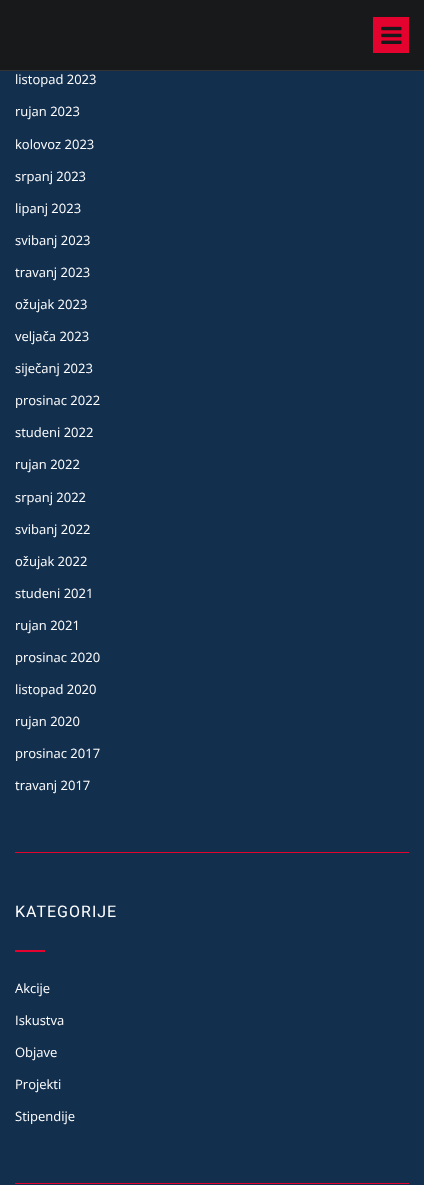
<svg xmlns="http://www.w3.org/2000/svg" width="424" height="1185">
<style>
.a{font:13px Open Sans;fill:#fff}
.b{font:16px Roboto;letter-spacing:1px;fill:#fff}
</style>
<rect width="100%" height="100%" fill="#122f4e"/>
<path fill="#18191b" d="M0 0h424v70H0z"/>
<path fill="#333" d="M0 70h424v1H0z"/>
<path fill="#e4022e" d="M373 17h36v36H373z"/>
<image href="1.png" x="381" y="26" width="21" height="18"/>
<path fill="#e4022e" d="M15 852h394v1H15z"/>
<path fill="#e4022e" d="M15 1183h394v1H15z"/>
<path fill="#e4022e" d="M15 950h30v2H15z"/>
<text class="a" x="15" y="84">listopad 2023</text>
<text class="a" x="15" y="116">rujan 2023</text>
<text class="a" x="15" y="149">kolovoz 2023</text>
<text class="a" x="15" y="181">srpanj 2023</text>
<text class="a" x="15" y="213">lipanj 2023</text>
<text class="a" x="15" y="245">svibanj 2023</text>
<text class="a" x="15" y="277">travanj 2023</text>
<text class="a" x="15" y="309">ožujak 2023</text>
<text class="a" x="15" y="341">veljača 2023</text>
<text class="a" x="15" y="373">siječanj 2023</text>
<text class="a" x="15" y="405">prosinac 2022</text>
<text class="a" x="15" y="437">studeni 2022</text>
<text class="a" x="15" y="469">rujan 2022</text>
<text class="a" x="15" y="502">srpanj 2022</text>
<text class="a" x="15" y="534">svibanj 2022</text>
<text class="a" x="15" y="566">ožujak 2022</text>
<text class="a" x="15" y="598">studeni 2021</text>
<text class="a" x="15" y="630">rujan 2021</text>
<text class="a" x="15" y="662">prosinac 2020</text>
<text class="a" x="15" y="694">listopad 2020</text>
<text class="a" x="15" y="726">rujan 2020</text>
<text class="a" x="15" y="758">prosinac 2017</text>
<text class="a" x="15" y="790">travanj 2017</text>
<text class="b" x="15" y="917">KATEGORIJE</text>
<text class="a" x="15" y="993">Akcije</text>
<text class="a" x="15" y="1025">Iskustva</text>
<text class="a" x="15" y="1057">Objave</text>
<text class="a" x="15" y="1089">Projekti</text>
<text class="a" x="15" y="1121">Stipendije</text>
</svg>
